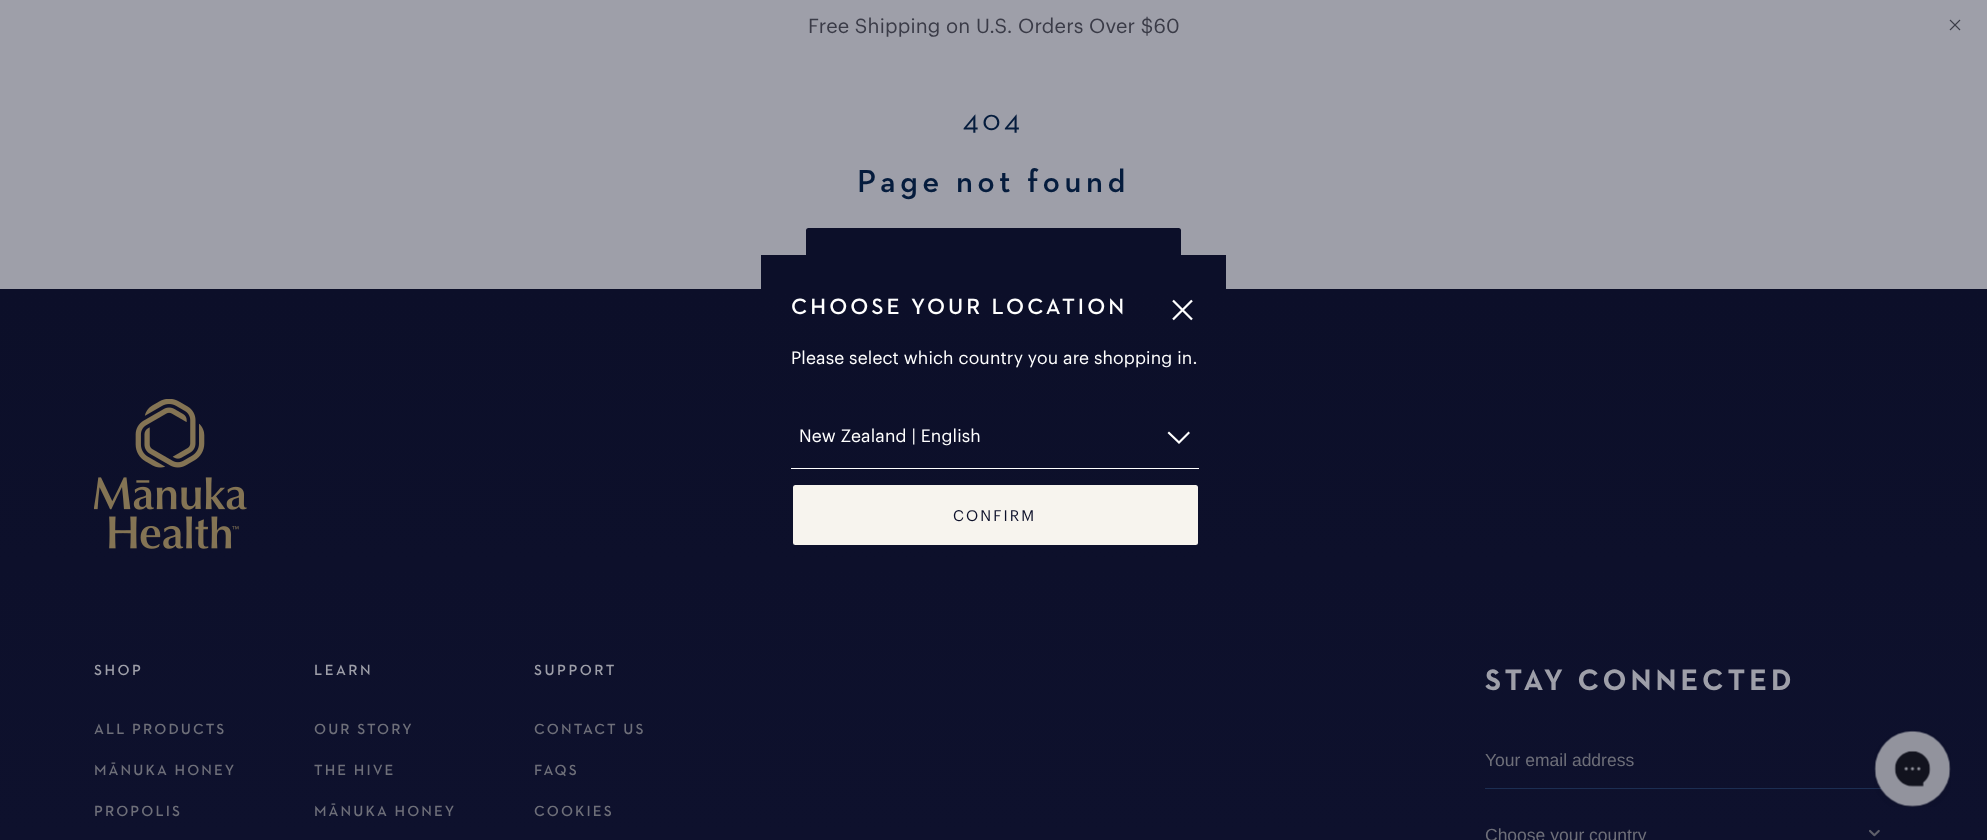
<svg xmlns="http://www.w3.org/2000/svg" width="1987" height="840">
<style>
.a{font:20px Graphik;letter-spacing:0.2px;fill:#3a3b47}
.b{font:30px 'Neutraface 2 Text';letter-spacing:4px;fill:#051c3d}
.c{font:600 32.5px 'Neutraface 2 Text';letter-spacing:4.5px;fill:#051c3d}
.d{font:600 22.5px 'Neutraface 2 Text';letter-spacing:3.1px;fill:#fff}
.e{font:17.5px Graphik;letter-spacing:0.15px;fill:#fff}
.f{font:15px Graphik;letter-spacing:2.1px;fill:#0c0f29}
.g{font:600 15px 'Neutraface 2 Text';letter-spacing:2.5px;fill:#9e9fa9}
.h{font:600 15px 'Neutraface 2 Text';letter-spacing:2.1px;fill:#6e6f79}
.i{font:bold 30px 'Neutraface 2 Text';letter-spacing:4px;fill:#9e9fa9}
.j{font:17.5px Liberation Sans;fill:#6e6f79}
</style>
<defs>
<linearGradient id="g1" gradientUnits="userSpaceOnUse" x1="994" y1="289" x2="994" y2="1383"><stop offset="0" stop-color="#0c0f29"/><stop offset="1" stop-color="#101331"/></linearGradient>
</defs>
<rect width="100%" height="100%" fill="#9e9fa9"/>
<image href="1.png" x="1949" y="19" width="12" height="12"/>
<rect fill="#0c0f29" x="806" y="228" width="375" height="60" rx="2.5"/>
<path fill="#0c0f29" d="M761 255h465v34H761z"/>
<path fill="url(#g1)" d="M0 289h1987v551H0z"/>
<path fill="none" stroke="#fff" stroke-width="2.3" d="M1173 300.5l19 19m0-19l-19 19"/>
<path fill="#fff" d="M791 468h408v1H791z"/>
<path fill="#fff" d="M1179 444l-11.5-11l1.5-1.5l10 9.5l9.5-9.5l1.5 1.5z"/>
<rect fill="#f7f4ee" x="793" y="485" width="405" height="60" rx="2.5"/>
<image href="2.png" x="94" y="399" width="153" height="150"/>
<path fill="#1c2e52" d="M1485 788h397v1H1485z"/>
<image href="3.png" x="1869" y="829" width="11" height="8"/>
<image href="4.png" x="1874" y="730" width="77" height="77"/>
<text class="a" x="808" y="33">Free Shipping on U.S. Orders Over $60</text>
<text class="b" x="963" y="130">404</text>
<text class="c" x="857" y="192">Page not found</text>
<text class="d" x="791" y="314">CHOOSE YOUR LOCATION</text>
<text class="e" x="791" y="364">Please select which country you are shopping in.</text>
<text class="e" x="799" y="442">New Zealand | English</text>
<text class="f" x="953" y="521">CONFIRM</text>
<text class="g" x="94" y="675">SHOP</text>
<text class="h" x="94" y="734">ALL PRODUCTS</text>
<text class="h" x="94" y="775">MĀNUKA HONEY</text>
<text class="h" x="94" y="816">PROPOLIS</text>
<text class="g" x="314" y="675">LEARN</text>
<text class="h" x="314" y="734">OUR STORY</text>
<text class="h" x="314" y="775">THE HIVE</text>
<text class="h" x="314" y="816">MĀNUKA HONEY</text>
<text class="g" x="534" y="675">SUPPORT</text>
<text class="h" x="534" y="734">CONTACT US</text>
<text class="h" x="534" y="775">FAQS</text>
<text class="h" x="534" y="816">COOKIES</text>
<text class="i" x="1485" y="690">STAY CONNECTED</text>
<text class="j" x="1485" y="766">Your email address</text>
<text class="j" x="1485" y="841">Choose your country</text>
</svg>
